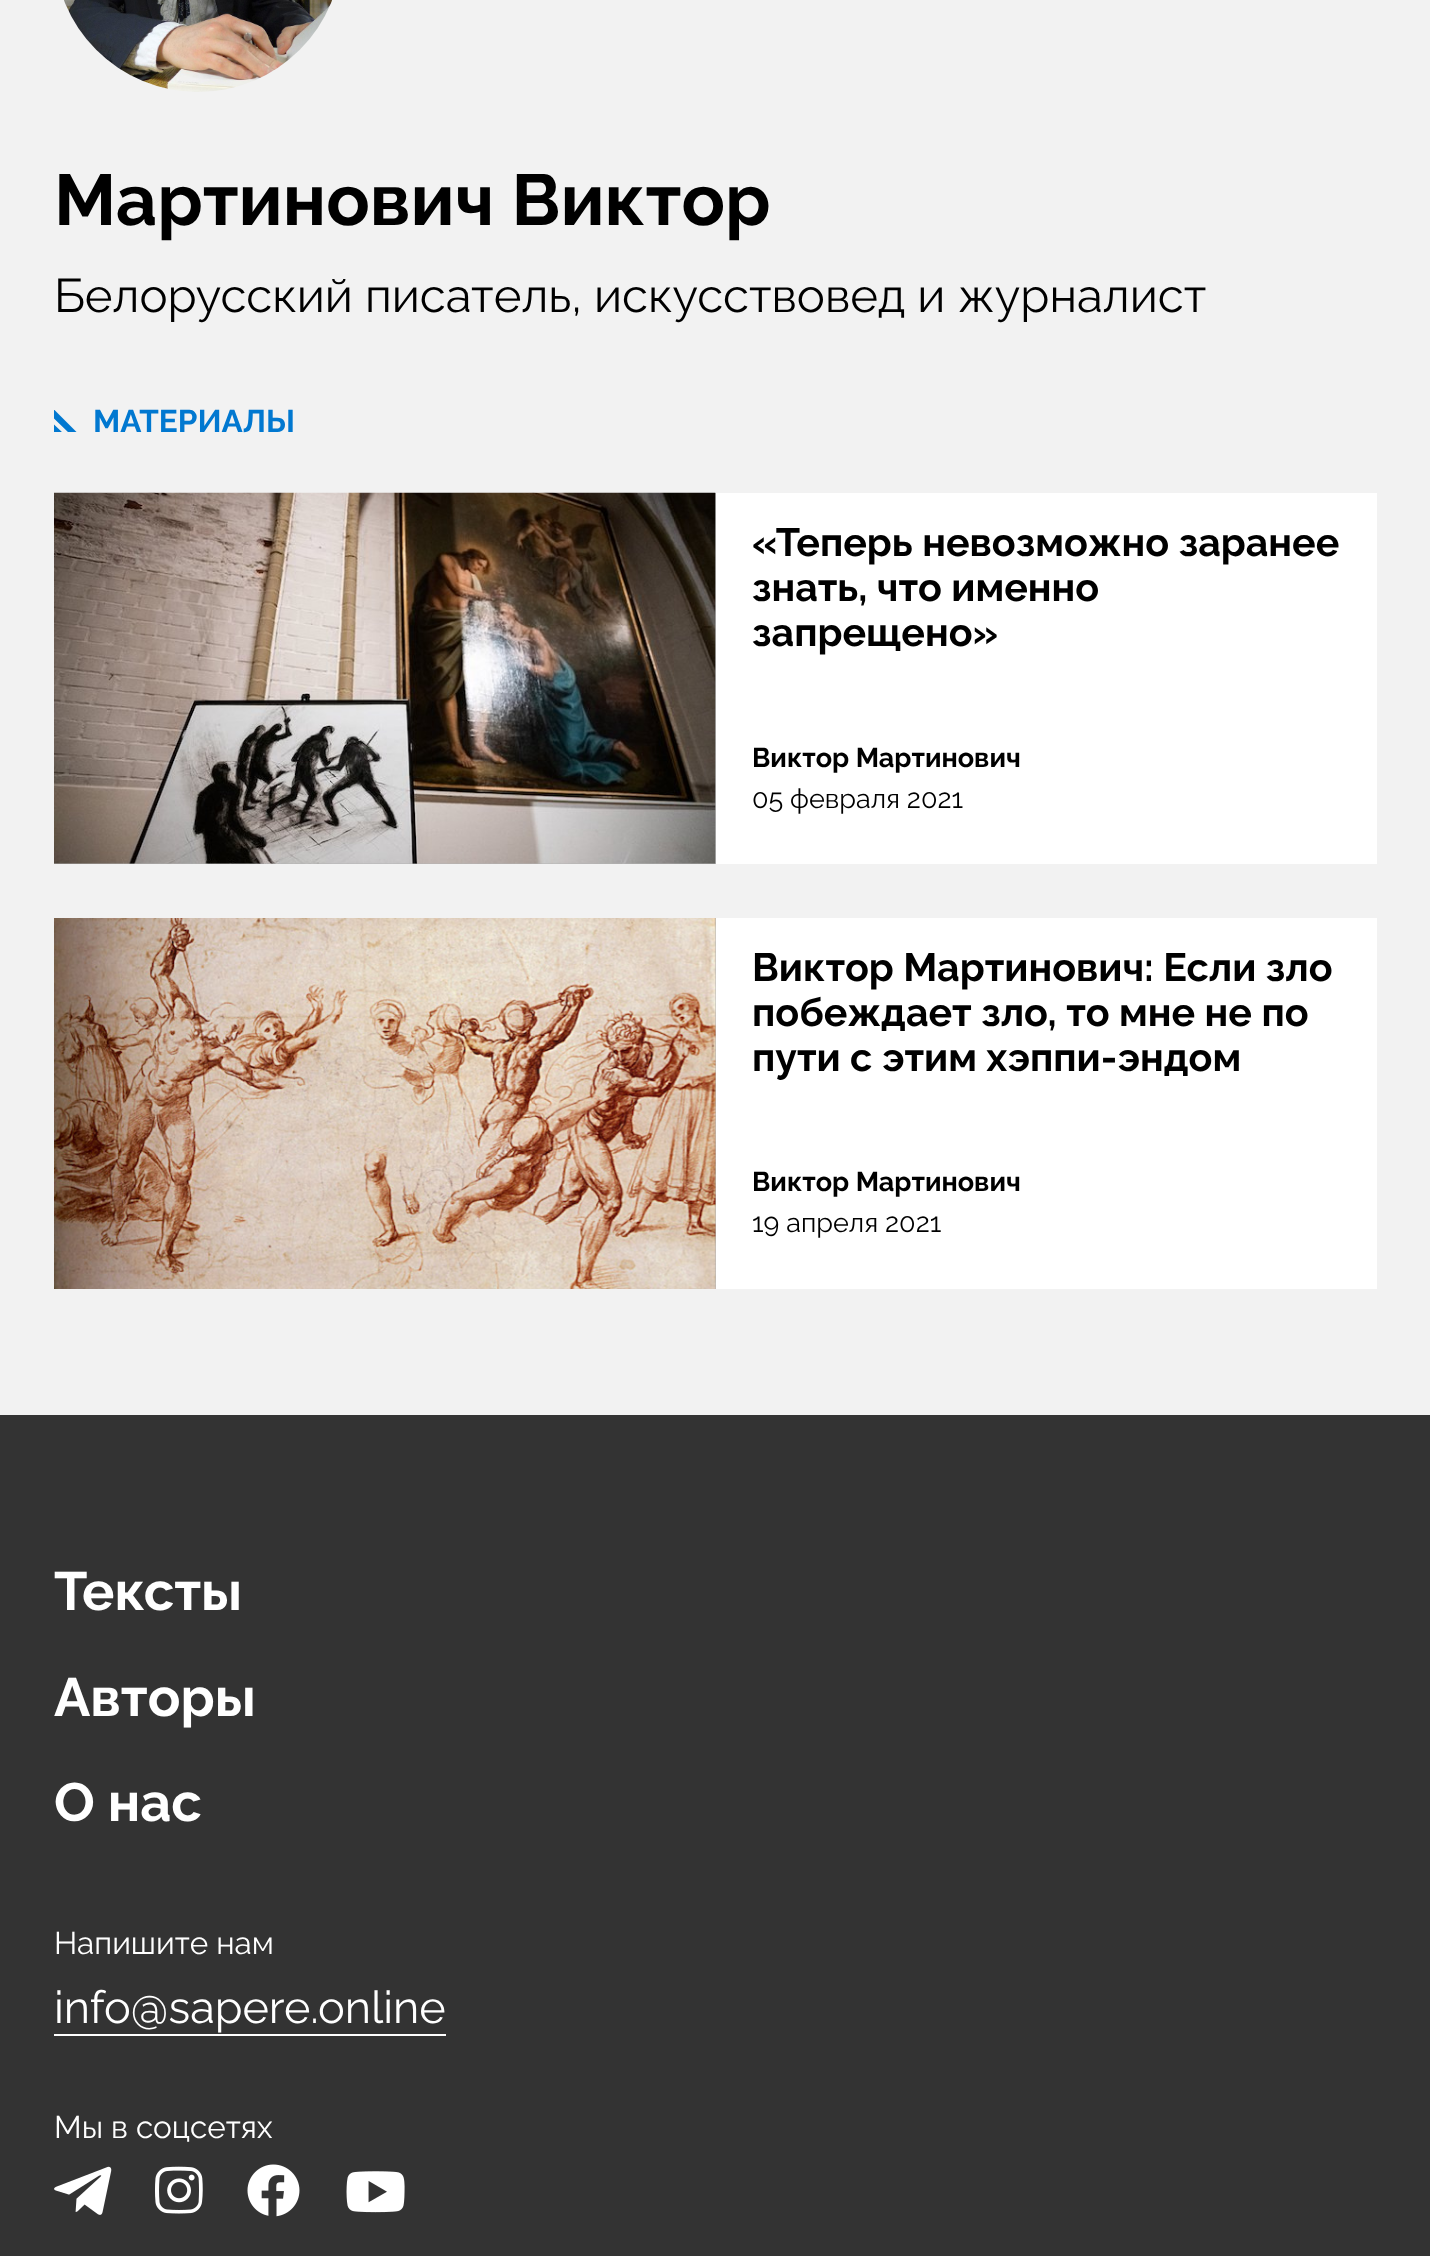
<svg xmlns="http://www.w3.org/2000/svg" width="1430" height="2256">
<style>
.a{font:bold 72px Raleway;fill:#000}
.b{font:47.25px Raleway;fill:#000}
.c{font:bold 31.5px Raleway;fill:#0178d0}
.d{font:bold 39.4px Raleway;fill:#000}
.e{font:bold 27px Raleway;fill:#000}
.f{font:27px Raleway;fill:#000}
.g{font:bold 54px Raleway;fill:#fff}
.h{font:31.5px Raleway;fill:#fff}
.i{font:45px Raleway;fill:#fff}
</style>
<defs>
<clipPath id="clip1"><path d="M54 410h25v22H54z"/></clipPath>
</defs>
<rect width="100%" height="100%" fill="#f2f2f2"/>
<image href="1.png" x="64" y="0" width="268" height="92"/>
<g clip-path="url(#clip1)">
<path fill="#0178d0" d="M77.5 433h-8.5l-15-14.5v-9zm-23.5 0h9l-9-8.5z"/>
</g>
<path fill="#fff" d="M716 493h661v371H716z"/>
<path fill="#b3b3b3" d="M54 493h662v371H54z"/>
<image href="2.png" x="54" y="492" width="662" height="372"/>
<path fill="#fff" d="M716 918h661v371H716z"/>
<path fill="#b3b3b3" d="M715 918h1v371H715z"/>
<image href="3.png" x="54" y="918" width="662" height="371"/>
<path fill="#333" d="M0 1415h1430v841H0z"/>
<path fill="#fff" d="M54 2034h392v2H54z"/>
<image href="4.png" x="54" y="2166" width="58" height="49"/>
<image href="5.png" x="155" y="2166" width="48" height="48"/>
<image href="6.png" x="247" y="2164" width="53" height="53"/>
<image href="7.png" x="346" y="2171" width="59" height="42"/>
<text class="a" x="54" y="225">Мартинович Виктор</text>
<text class="b" x="54" y="312">Белорусский писатель, искусствовед и журналист</text>
<text class="c" x="93" y="432">МАТЕРИАЛЫ</text>
<text class="d" x="752" y="556">«Теперь невозможно заранее</text>
<text class="d" x="752" y="601">знать, что именно</text>
<text class="d" x="752" y="646">запрещено»</text>
<text class="e" x="752" y="767">Виктор Мартинович</text>
<text class="f" x="752" y="808">05 февраля 2021</text>
<text class="d" x="752" y="981">Виктор Мартинович: Если зло</text>
<text class="d" x="752" y="1026">побеждает зло, то мне не по</text>
<text class="d" x="752" y="1071">пути с этим хэппи-эндом</text>
<text class="e" x="752" y="1191">Виктор Мартинович</text>
<text class="f" x="752" y="1232">19 апреля 2021</text>
<text class="g" x="54" y="1610">Тексты</text>
<text class="g" x="54" y="1716">Авторы</text>
<text class="g" x="54" y="1821">О нас</text>
<text class="h" x="54" y="1954">Напишите нам</text>
<text class="i" x="54" y="2023">info@sapere.online</text>
<text class="h" x="54" y="2138">Мы в соцсетях</text>
</svg>
